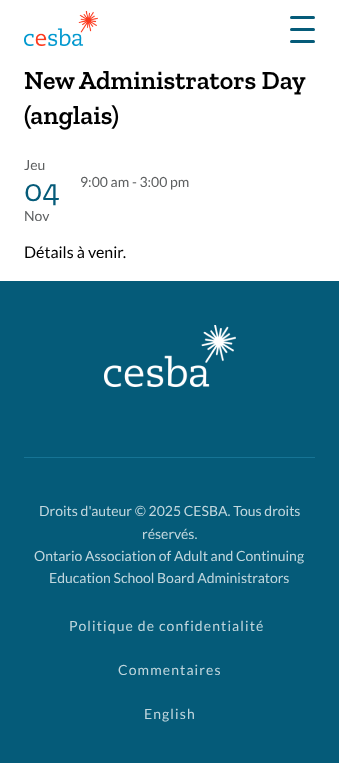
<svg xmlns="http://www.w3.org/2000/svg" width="339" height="763">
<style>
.a{font:600 26px Zilla Slab;fill:#000}
.b{font:14px Lato;fill:#5d5f60}
.c{font:32px Zilla Slab;fill:#055b79}
.d{font:16px Lato;fill:#000}
.e{font:14px Lato;fill:#c2d7de}
.f{font:14px Lato;letter-spacing:1.1px;fill:#c2d7de}
</style>
<rect width="100%" height="100%" fill="#fff"/>
<image href="1.png" x="24" y="11" width="74" height="35"/>
<rect fill="#055b79" x="290" y="16" width="25" height="3" rx="1.5"/>
<rect fill="#055b79" x="290" y="28" width="25" height="3" rx="1.5"/>
<rect fill="#055b79" x="290" y="40" width="25" height="3" rx="1.5"/>
<path fill="#055b79" d="M0 281h339v482H0z"/>
<path fill="#167495" d="M24 457h291v1H24z"/>
<image href="2.png" x="104" y="325" width="132" height="62"/>
<text class="a" x="24" y="89">New Administrators Day</text>
<text class="a" x="24" y="124">(anglais)</text>
<text class="b" x="24" y="170">Jeu</text>
<text class="c" x="24" y="201">04</text>
<text class="b" x="24" y="221">Nov</text>
<text class="b" x="80" y="187">9:00 am - 3:00 pm</text>
<text class="d" x="24" y="258">Détails à venir.</text>
<text class="e" x="39" y="516">Droits d'auteur © 2025 CESBA. Tous droits</text>
<text class="e" x="142" y="539">réservés.</text>
<text class="e" x="34" y="561">Ontario Association of Adult and Continuing</text>
<text class="e" x="49" y="583">Education School Board Administrators</text>
<text class="f" x="69" y="631">Politique de confidentialité</text>
<text class="f" x="118" y="675">Commentaires</text>
<text class="f" x="144" y="719">English</text>
</svg>
